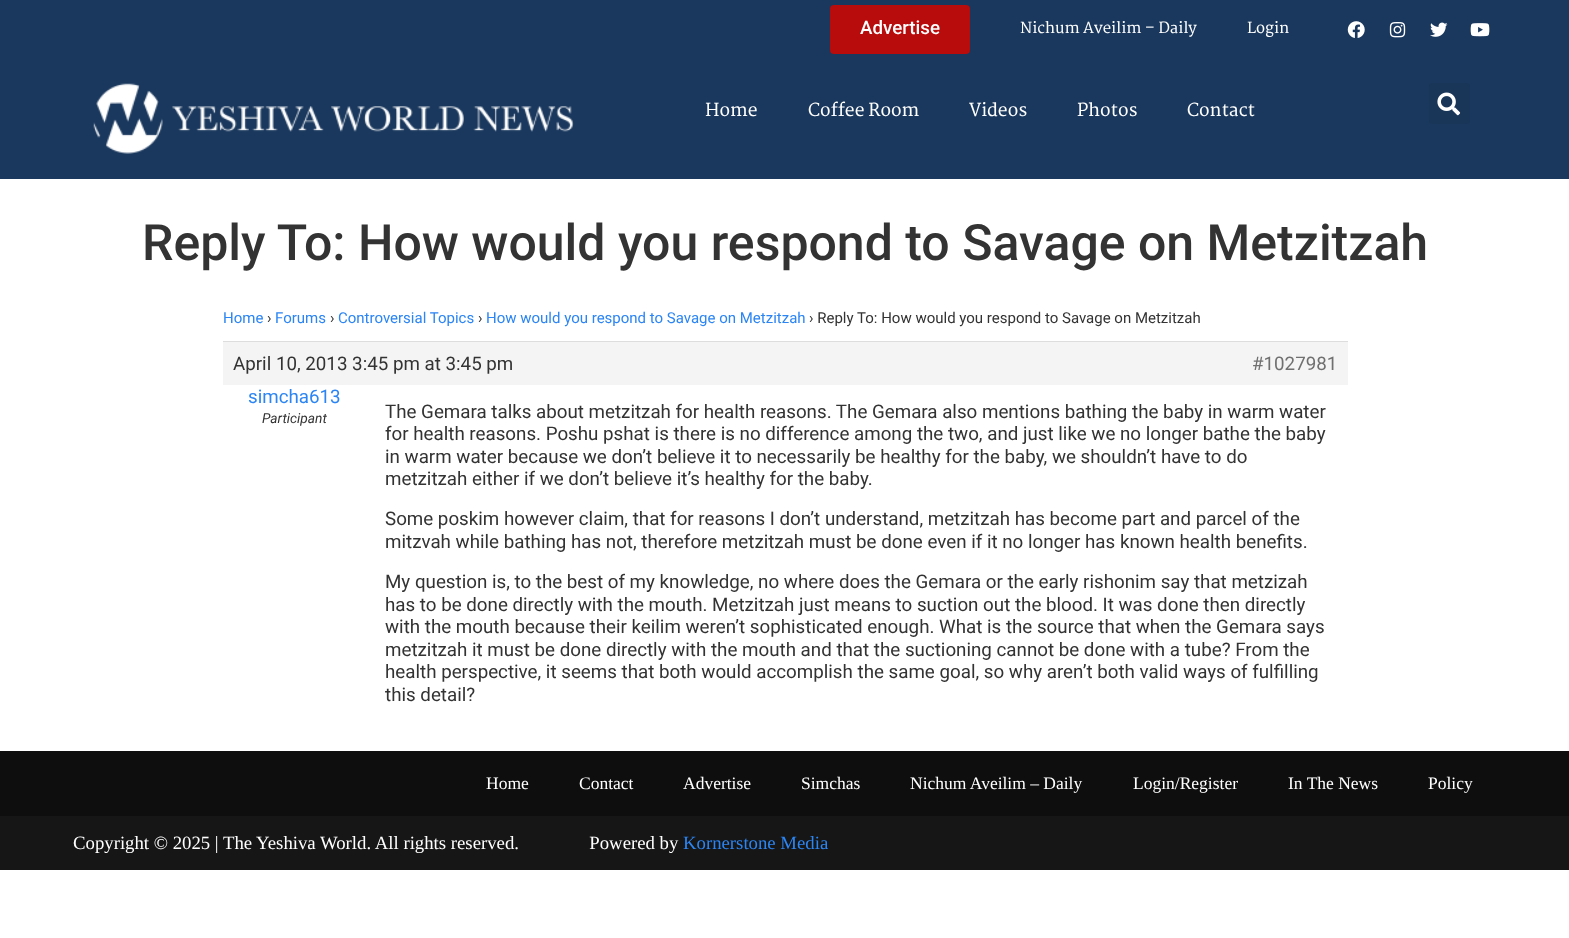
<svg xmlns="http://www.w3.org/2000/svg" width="1569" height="938">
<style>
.a{font:500 18.75px Roboto;fill:#fff}
.b{font:600 15px Martel;fill:#fff}
.c{font:600 17.5px Martel;fill:#fff}
.d{font:500 50px Roboto;fill:#333}
.e{font:15px Roboto;fill:#2b85f4}
.f{font:15px Roboto;fill:#333}
.g{font:18.75px Roboto;fill:#333}
.h{font:18.75px Roboto;fill:#707070}
.i{font:18.75px Roboto;fill:#2b85f4}
.j{font:italic 13.75px Roboto;fill:#333}
.k{font:17.5px Liberation Serif;fill:#fff}
.l{font:18.75px Liberation Serif;fill:#fff}
.m{font:18.75px Liberation Serif;fill:#2b85f4}
</style>
<rect width="100%" height="100%" fill="#fff"/>
<path fill="#1a385d" d="M0 0h1569v179H0z"/>
<rect fill="#b80b0b" x="830" y="5" width="140" height="49" rx="4"/>
<image href="1.png" x="1347" y="21" width="18" height="17"/>
<image href="2.png" x="1389" y="22" width="17" height="16"/>
<image href="3.png" x="1430" y="22" width="18" height="15"/>
<image href="4.png" x="1470" y="23" width="20" height="14"/>
<image href="5.png" x="93" y="83" width="481" height="71"/>
<rect fill="#193558" x="1429" y="83" width="41" height="41" rx="4"/>
<image href="6.png" x="1437" y="92" width="24" height="24"/>
<path fill="#f4f4f4" d="M223 342h1125v43H223z"/>
<path fill="#ddd" d="M223 341h1125v1H223z"/>
<path fill="#0e0e0e" d="M0 751h1569v65H0z"/>
<path fill="#161616" d="M0 816h1569v54H0z"/>
<text class="a" x="860" y="34">Advertise</text>
<text class="b" x="1020" y="33">Nichum Aveilim – Daily</text>
<text class="b" x="1247" y="33">Login</text>
<text class="c" x="705" y="116">Home</text>
<text class="c" x="808" y="116">Coffee Room</text>
<text class="c" x="969" y="116">Videos</text>
<text class="c" x="1077" y="116">Photos</text>
<text class="c" x="1187" y="116">Contact</text>
<text class="d" x="142" y="260">Reply To: How would you respond to Savage on Metzitzah</text>
<text class="e" x="223" y="323">Home</text>
<text class="f" x="267" y="323">›</text>
<text class="e" x="275" y="323">Forums</text>
<text class="f" x="330" y="323">›</text>
<text class="e" x="338" y="323">Controversial Topics</text>
<text class="f" x="478" y="323">›</text>
<text class="e" x="486" y="323">How would you respond to Savage on Metzitzah</text>
<text class="f" x="809" y="323">› Reply To: How would you respond to Savage on Metzitzah</text>
<text class="g" x="233" y="370">April 10, 2013 3:45 pm at 3:45 pm</text>
<text class="h" x="1252" y="370">#1027981</text>
<text class="i" x="248" y="403">simcha613</text>
<text class="j" x="262" y="423">Participant</text>
<text class="g" x="385" y="418">The Gemara talks about metzitzah for health reasons. The Gemara also mentions bathing the baby in warm water</text>
<text class="g" x="385" y="440">for health reasons. Poshu pshat is there is no difference among the two, and just like we no longer bathe the baby</text>
<text class="g" x="385" y="463">in warm water because we don’t believe it to necessarily be healthy for the baby, we shouldn’t have to do</text>
<text class="g" x="385" y="485">metzitzah either if we don’t believe it’s healthy for the baby.</text>
<text class="g" x="385" y="525">Some poskim however claim, that for reasons I don’t understand, metzitzah has become part and parcel of the</text>
<text class="g" x="385" y="548">mitzvah while bathing has not, therefore metzitzah must be done even if it no longer has known health benefits.</text>
<text class="g" x="385" y="588">My question is, to the best of my knowledge, no where does the Gemara or the early rishonim say that metzizah</text>
<text class="g" x="385" y="611">has to be done directly with the mouth. Metzitzah just means to suction out the blood. It was done then directly</text>
<text class="g" x="385" y="633">with the mouth because their keilim weren’t sophisticated enough. What is the source that when the Gemara says</text>
<text class="g" x="385" y="656">metzitzah it must be done directly with the mouth and that the suctioning cannot be done with a tube? From the</text>
<text class="g" x="385" y="678">health perspective, it seems that both would accomplish the same goal, so why aren’t both valid ways of fulfilling</text>
<text class="g" x="385" y="701">this detail?</text>
<text class="k" x="486" y="789">Home</text>
<text class="k" x="579" y="789">Contact</text>
<text class="k" x="683" y="789">Advertise</text>
<text class="k" x="801" y="789">Simchas</text>
<text class="k" x="910" y="789">Nichum Aveilim – Daily</text>
<text class="k" x="1133" y="789">Login/Register</text>
<text class="k" x="1288" y="789">In The News</text>
<text class="k" x="1428" y="789">Policy</text>
<text class="l" xml:space="preserve" x="73" y="849">Copyright © 2025 | The Yeshiva World. All rights reserved.               Powered by</text>
<text class="m" x="683" y="849">Kornerstone Media</text>
</svg>
